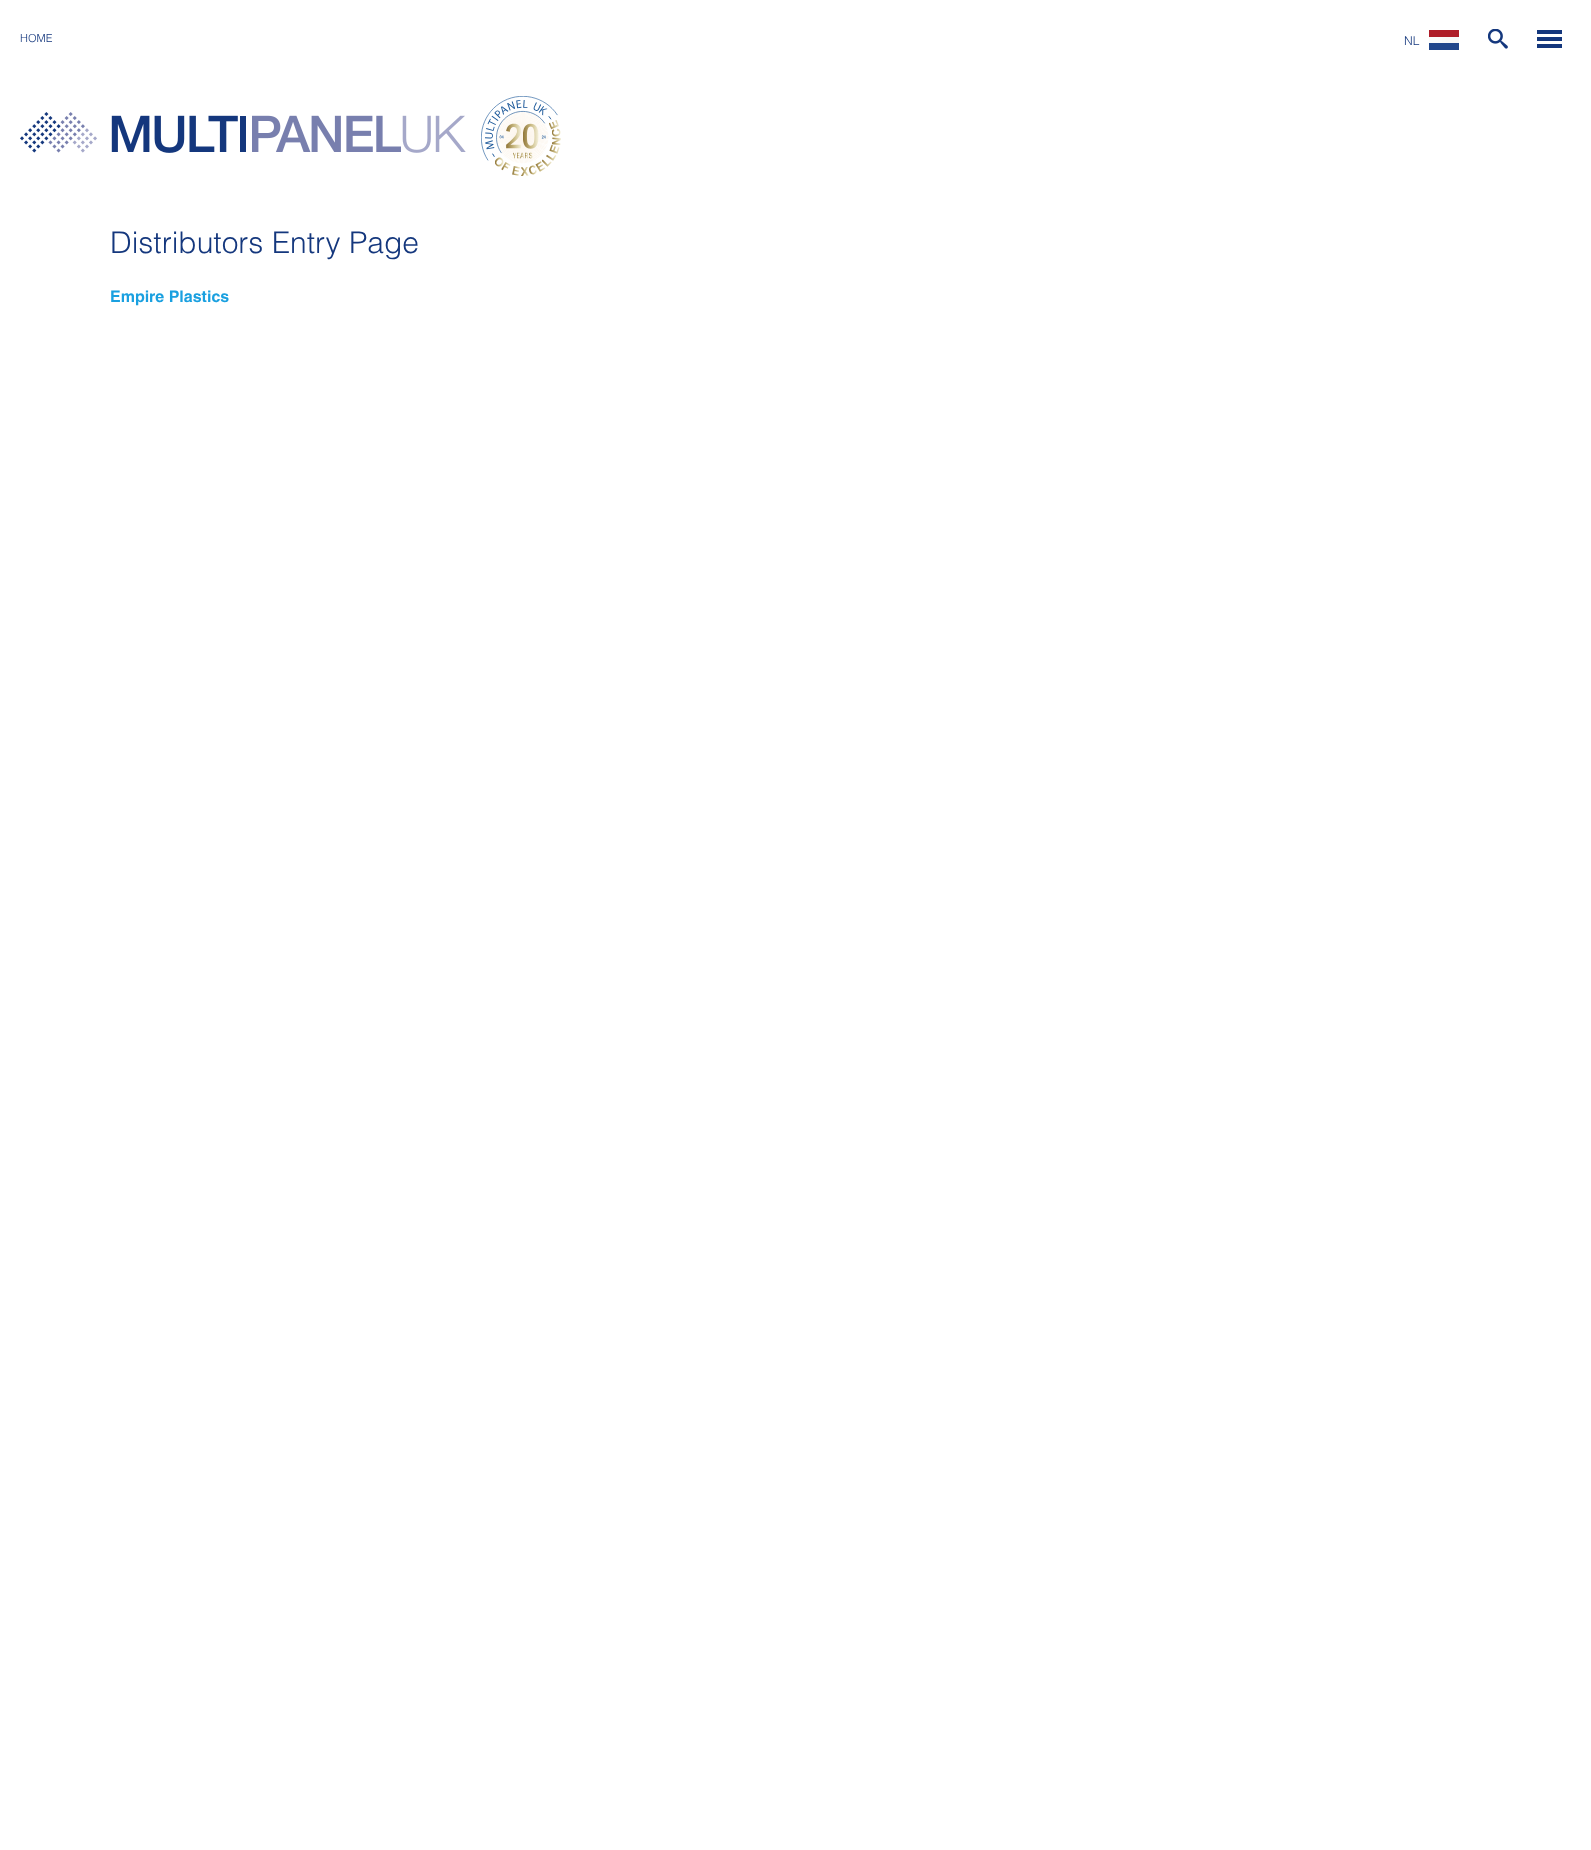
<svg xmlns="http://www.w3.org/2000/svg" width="1591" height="1850">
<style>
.a{font:11px Helvetica;fill:#14377d}
.b{font:12px Helvetica;fill:#14377d}
.c{font:30px Helvetica;fill:#14377d}
.d{font:16px 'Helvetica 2';fill:#1aa0e0}
</style>
<rect width="100%" height="100%" fill="#fff"/>
<image href="1.png" x="20" y="112" width="446" height="41"/>
<image href="2.png" x="481" y="96" width="80" height="80"/>
<image href="3.png" x="1429" y="30" width="30" height="20"/>
<image href="4.png" x="1488" y="29" width="20" height="20"/>
<path fill="#14377d" d="M1537 30h25v4H1537z"/>
<path fill="#14377d" d="M1537 37h25v4H1537z"/>
<path fill="#14377d" d="M1537 44h25v4H1537z"/>
<text class="a" x="20" y="42">HOME</text>
<text class="b" x="1404" y="45">NL</text>
<text class="c" x="110" y="253">Distributors Entry Page</text>
<text class="d" x="110" y="302">Empire Plastics</text>
</svg>
